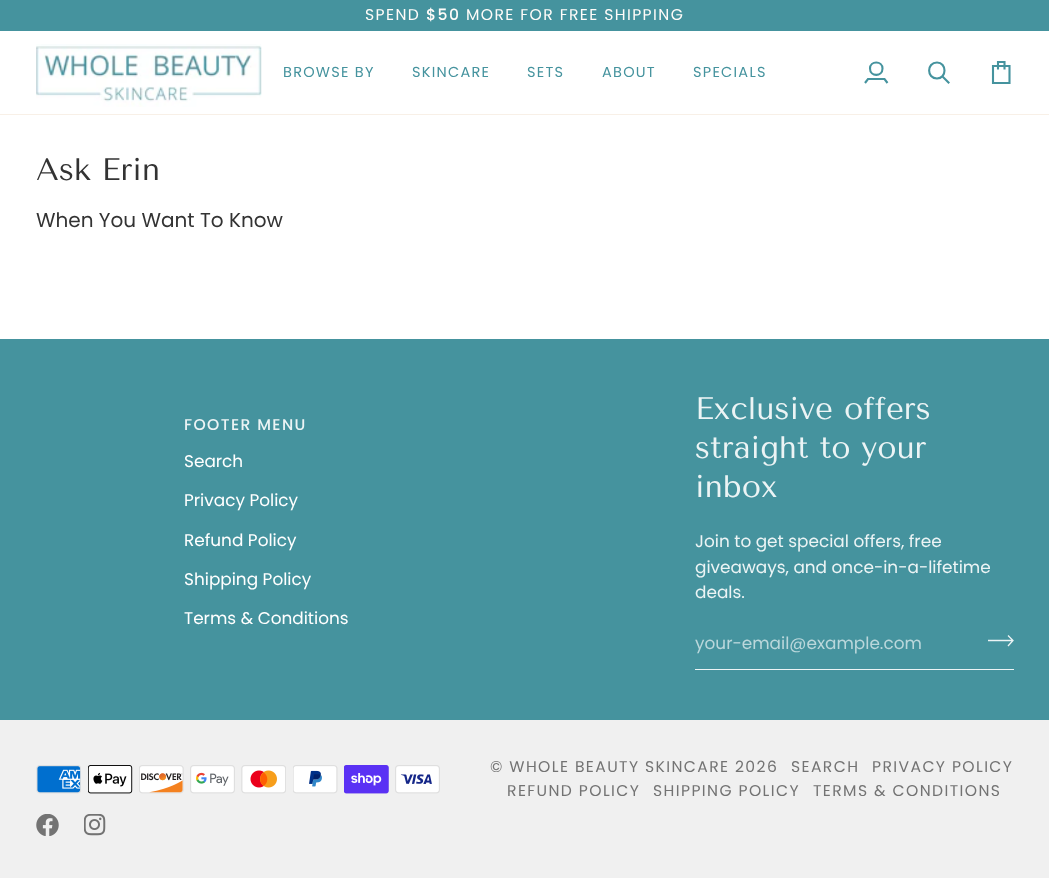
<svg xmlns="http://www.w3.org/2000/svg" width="1049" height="878">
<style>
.a{font:15.6px Poppins;letter-spacing:1.4px;fill:#fffcf9}
.b{font:500 15.6px Poppins;letter-spacing:1.4px;fill:#fffcf9}
.c{font:14.5px Poppins;letter-spacing:1.25px;fill:#45939e}
.d{font:31.25px Tenor Sans;fill:#333}
.e{font:20px Poppins;fill:#333}
.f{font:500 15.6px Poppins;letter-spacing:1.4px;fill:#ecf4f5}
.g{font:16.9px Poppins;fill:#fff}
.h{font:31.25px Tenor Sans;fill:#ecf4f5}
.i{font:16.9px Poppins;fill:#ecf4f5}
.j{font:16.9px Poppins;fill:#bad7db}
.k{font:15.6px Poppins;letter-spacing:1.4px;fill:#737373}
</style>
<rect width="100%" height="100%" fill="#fff"/>
<path fill="#45939e" d="M0 0h1049v31H0z"/>
<path fill="#f8f0e7" d="M0 114h1049v1H0z"/>
<image href="1.png" x="36" y="44" width="226" height="63"/>
<path fill="none" stroke="#45939e" stroke-width="2.1" d="M865 83l3-4h16.5l3 4m-5-14.5c0 8.5-12.5 8.5-12.5 0c0-8 12.5-8 12.5 0z"/>
<path fill="none" stroke="#45939e" stroke-width="2.1" stroke-linecap="square" d="M937 78.5c10 0 10-16 0-16c-10.5 0-10.5 16 0 16zm11.5 4l-6-6"/>
<path fill="none" stroke="#45939e" stroke-width="2.1" d="M993 66h16.5v17h-16.5zm5 3.5v-7.5h6.5v7.5"/>
<path fill="#45939e" d="M0 339h1049v381H0z"/>
<path fill="#ecf4f5" d="M695 669h319v1H695z"/>
<path fill="none" stroke="#ecf4f5" stroke-width="1.3" d="M1008 635.5l5 5l-5 5.5m-20-5.5h25"/>
<path fill="#f0f0f0" d="M0 720h1049v158H0z"/>
<image href="2.png" x="36" y="765" width="45" height="29"/>
<image href="3.png" x="88" y="765" width="45" height="29"/>
<image href="4.png" x="139" y="765" width="45" height="29"/>
<image href="5.png" x="190" y="765" width="45" height="29"/>
<image href="6.png" x="241" y="765" width="45" height="29"/>
<image href="7.png" x="293" y="765" width="45" height="29"/>
<image href="8.png" x="344" y="765" width="45" height="29"/>
<image href="9.png" x="395" y="765" width="45" height="29"/>
<image href="10.png" x="36" y="814" width="23" height="22"/>
<image href="11.png" x="84" y="814" width="22" height="22"/>
<text class="a" x="365" y="20">SPEND</text>
<text class="b" x="426" y="20">$50</text>
<text class="a" x="466" y="20">MORE FOR FREE SHIPPING</text>
<text class="c" x="283" y="77">BROWSE BY</text>
<text class="c" x="412" y="77">SKINCARE</text>
<text class="c" x="527" y="77">SETS</text>
<text class="c" x="602" y="77">ABOUT</text>
<text class="c" x="693" y="77">SPECIALS</text>
<text class="d" x="36" y="180">Ask Erin</text>
<text class="e" x="36" y="227">When You Want To Know</text>
<text class="f" x="184" y="430">FOOTER MENU</text>
<text class="g" x="184" y="467">Search</text>
<text class="g" x="184" y="506">Privacy Policy</text>
<text class="g" x="184" y="546">Refund Policy</text>
<text class="g" x="184" y="585">Shipping Policy</text>
<text class="g" x="184" y="624">Terms &amp; Conditions</text>
<text class="h" x="695" y="419">Exclusive offers</text>
<text class="h" x="695" y="458">straight to your</text>
<text class="h" x="695" y="497">inbox</text>
<text class="i" x="695" y="547">Join to get special offers, free</text>
<text class="i" x="695" y="573">giveaways, and once-in-a-lifetime</text>
<text class="i" x="695" y="598">deals.</text>
<text class="j" x="695" y="649">your-email@example.com</text>
<text class="k" x="490" y="772">© WHOLE BEAUTY SKINCARE</text>
<text class="k" x="735" y="772">2026</text>
<text class="k" x="791" y="772">SEARCH</text>
<text class="k" x="872" y="772">PRIVACY POLICY</text>
<text class="k" x="507" y="796">REFUND POLICY</text>
<text class="k" x="653" y="796">SHIPPING POLICY</text>
<text class="k" x="813" y="796">TERMS &amp; CONDITIONS</text>
</svg>
